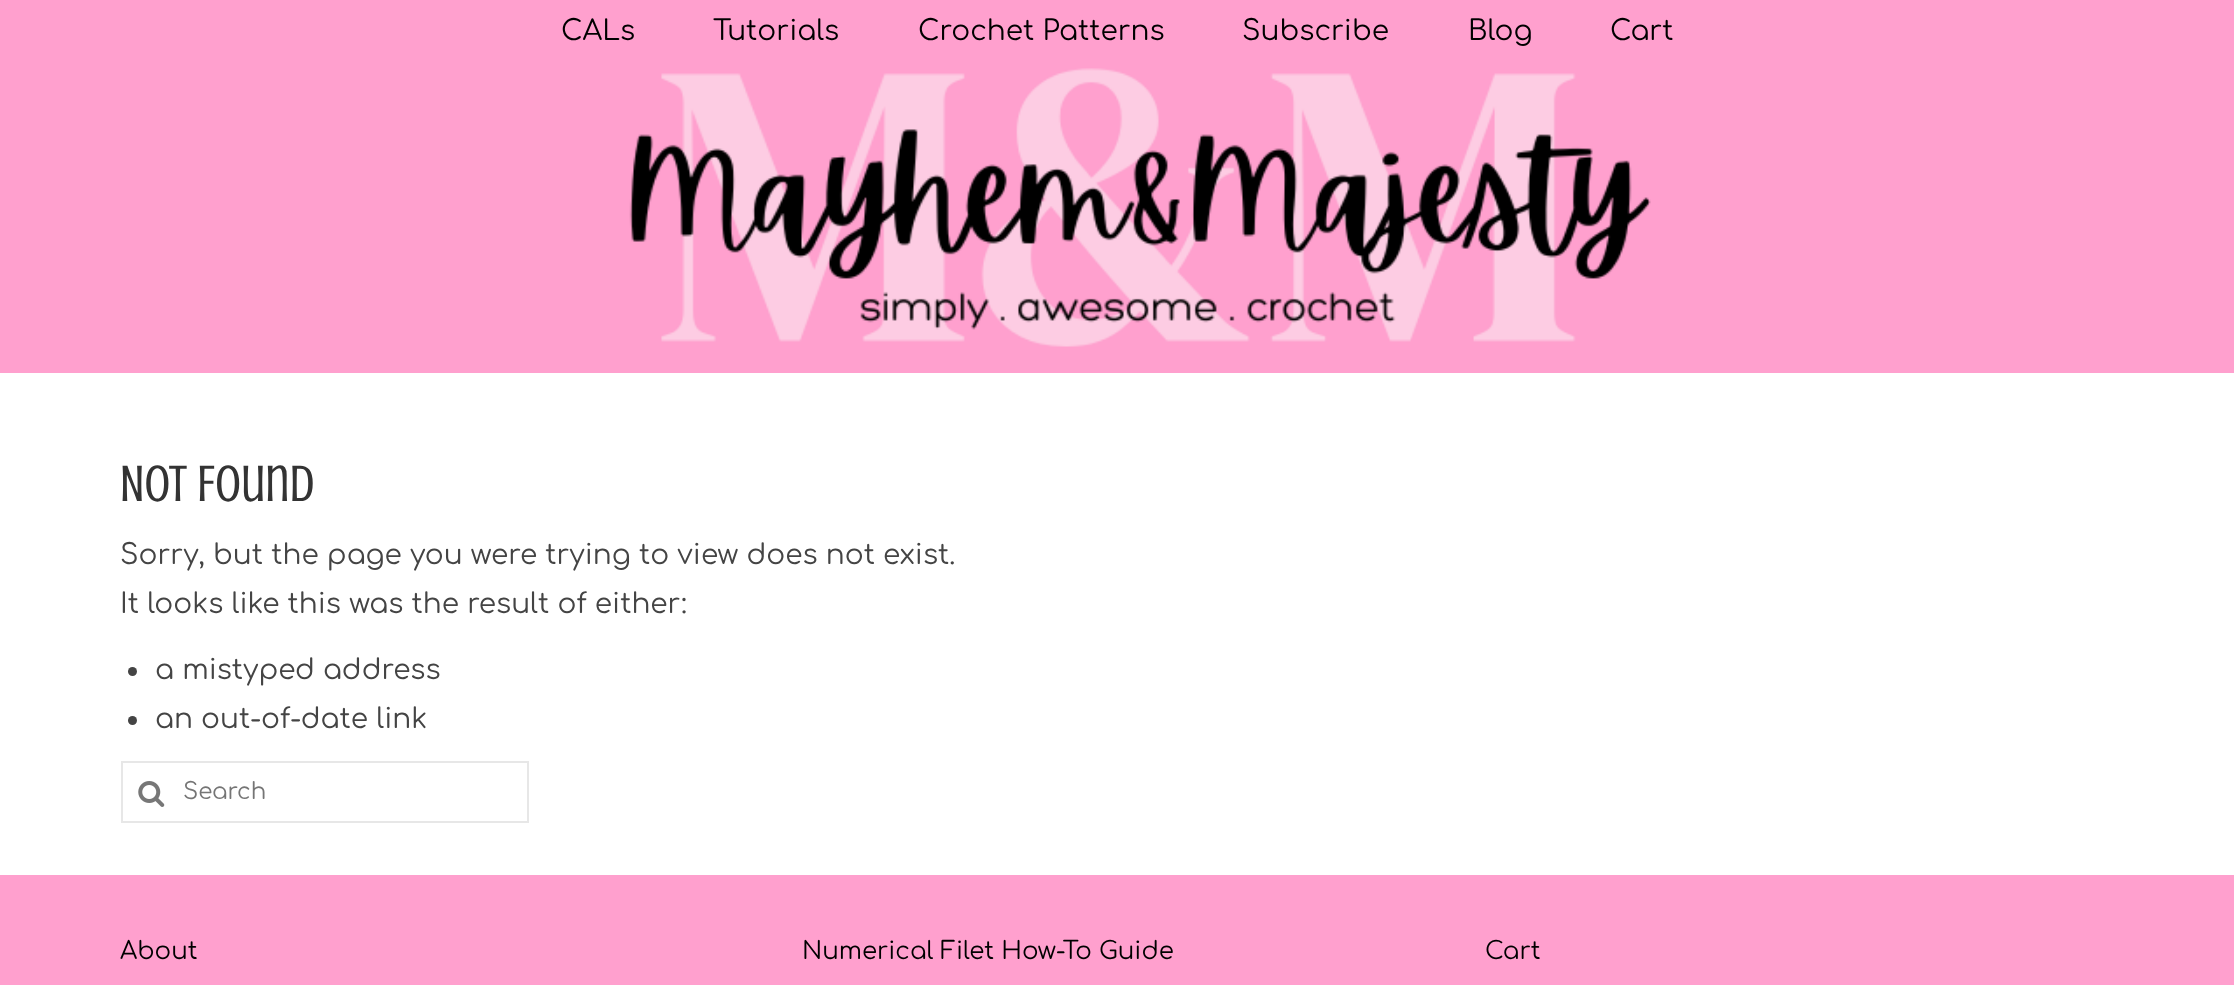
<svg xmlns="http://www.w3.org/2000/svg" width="2234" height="985">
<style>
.a{font:28px Comfortaa;fill:#000}
.b{font:52.5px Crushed;fill:#333}
.c{font:28px Comfortaa;fill:#444}
.d{font:23px Comfortaa;fill:#757575}
.e{font:24.5px Comfortaa;fill:#000}
</style>
<rect width="100%" height="100%" fill="#fff"/>
<path fill="#ffa0ce" d="M0 0h2234v373H0z"/>
<image href="1.png" x="629" y="68" width="1022" height="279"/>
<circle fill="#444" cx="132.5" cy="671.5" r="4.5"/>
<circle fill="#444" cx="132.5" cy="720.5" r="4.5"/>
<path fill="none" stroke="#e7e7e7" stroke-width="2" d="M122 762h406v60H122z"/>
<image href="2.png" x="138" y="781" width="27" height="26"/>
<path fill="#ffa0ce" d="M0 875h2234v110H0z"/>
<text class="a" x="561" y="40">CALs</text>
<text class="a" x="713" y="40">Tutorials</text>
<text class="a" x="918" y="40">Crochet Patterns</text>
<text class="a" x="1242" y="40">Subscribe</text>
<text class="a" x="1468" y="40">Blog</text>
<text class="a" x="1610" y="40">Cart</text>
<text class="b" x="120" y="501">Not Found</text>
<text class="c" x="120" y="564">Sorry, but the page you were trying to view does not exist.</text>
<text class="c" x="120" y="613">It looks like this was the result of either:</text>
<text class="c" x="155" y="679">a mistyped address</text>
<text class="c" x="155" y="728">an out-of-date link</text>
<text class="d" x="183" y="799">Search</text>
<text class="e" x="120" y="959">About</text>
<text class="e" x="802" y="959">Numerical Filet How-To Guide</text>
<text class="e" x="1485" y="959">Cart</text>
</svg>
